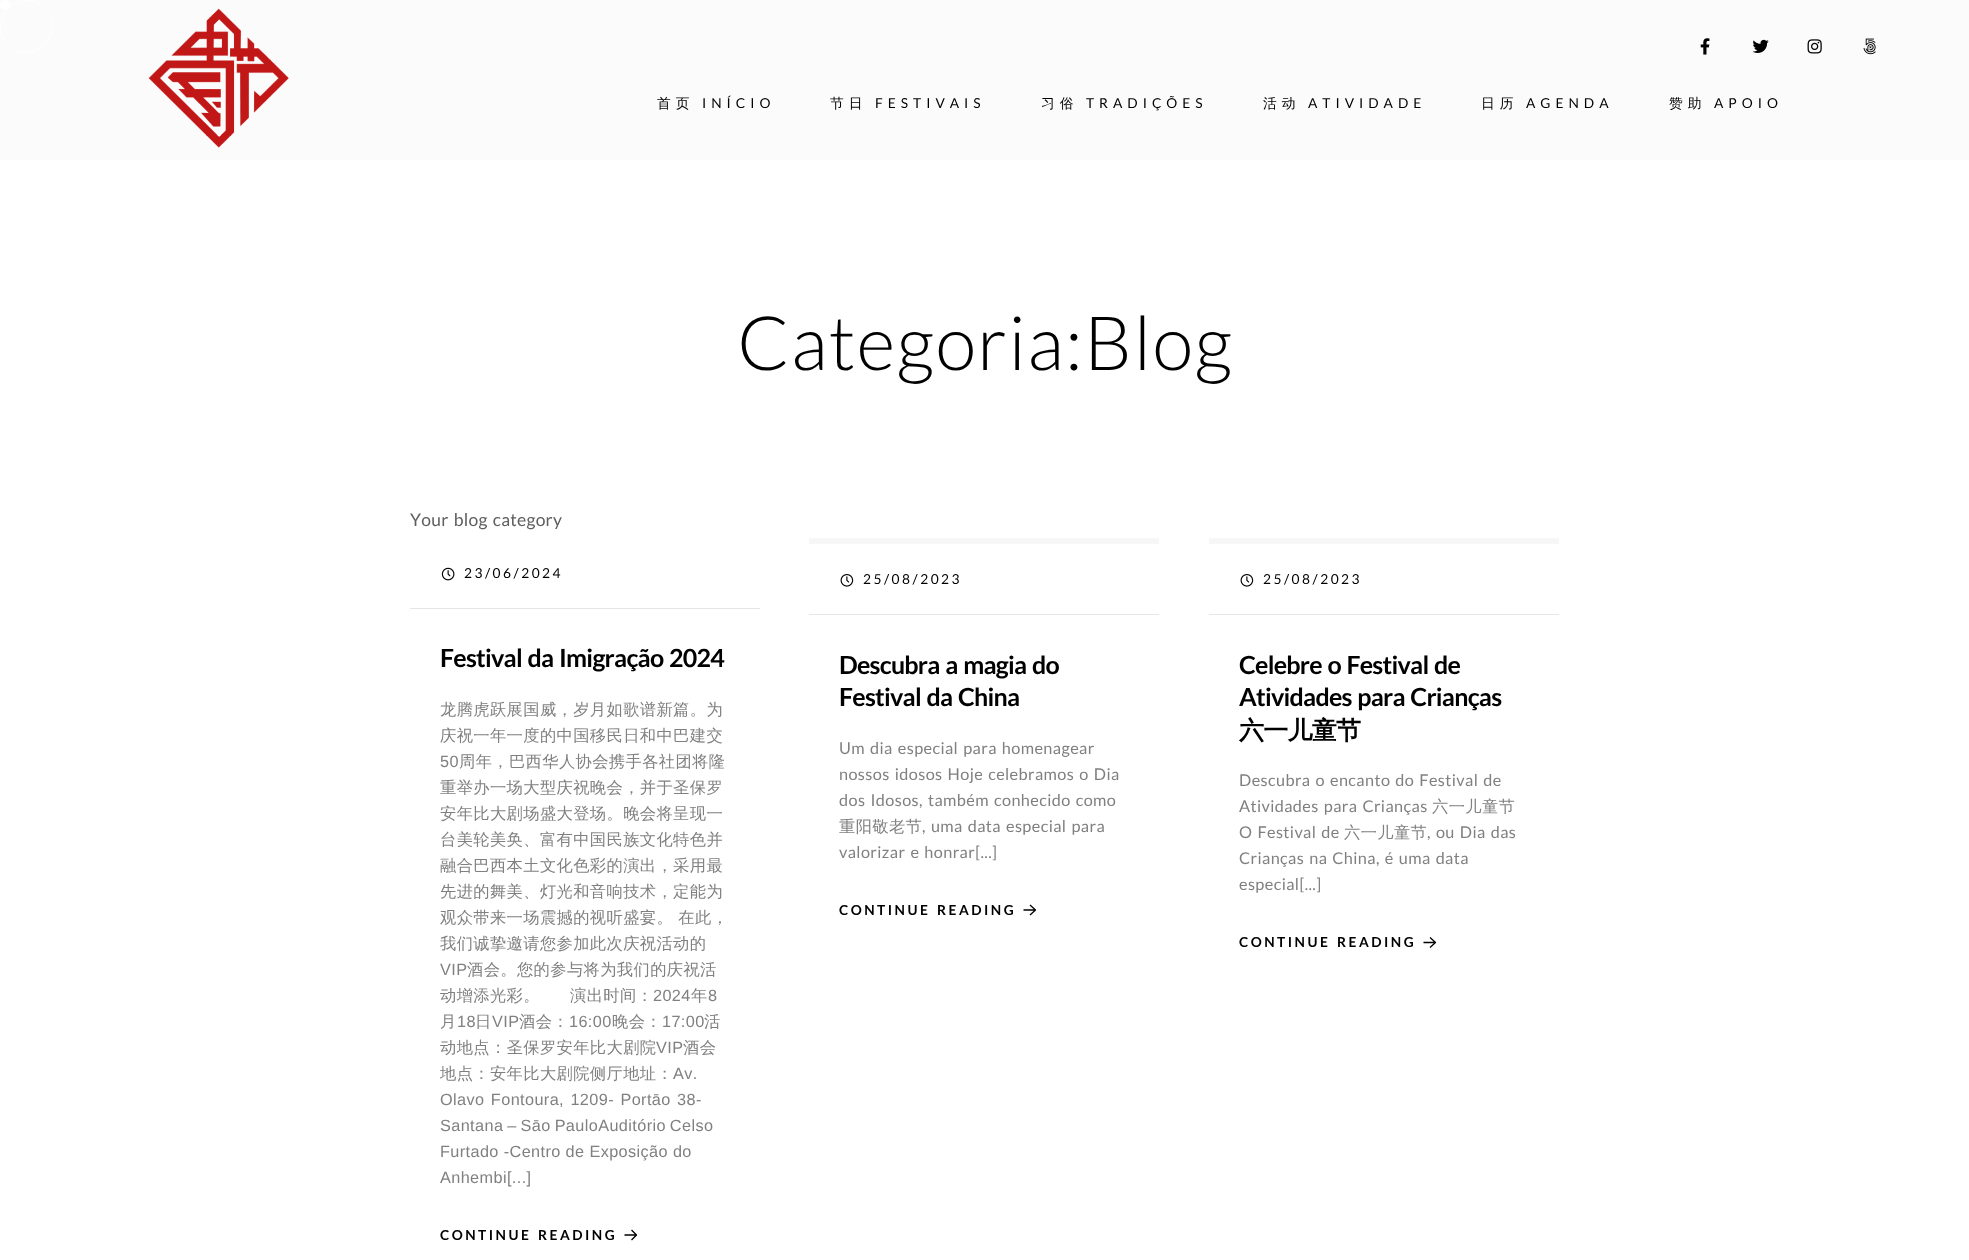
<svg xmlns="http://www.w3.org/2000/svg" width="1969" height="1260">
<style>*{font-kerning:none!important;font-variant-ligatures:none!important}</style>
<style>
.a{font:500 13.75px WenQuanYi Zen Hei;letter-spacing:5px;fill:#000}
.b{font:13.75px Lato;letter-spacing:5px;fill:#000}
.c{font:300 75px Lato;letter-spacing:1.25px;fill:#000}
.d{font:17.5px Lato;letter-spacing:0.25px;fill:#5e5e5e}
.e{font:13.75px Lato;letter-spacing:2.5px;fill:#000}
.f{font:bold 25px Lato;letter-spacing:-0.75px;fill:#000}
.g{font:500 16.25px WenQuanYi Zen Hei;letter-spacing:0.4px;fill:#808080}
.h{font:16.25px Liberation Sans;letter-spacing:0.4px;fill:#808080}
.i{font:bold 13.75px Lato;letter-spacing:2.5px;fill:#000}
.j{font:16.25px Lato;letter-spacing:0.4px;fill:#808080}
.k{font:bold 25px WenQuanYi Zen Hei;letter-spacing:-0.75px;fill:#000}
</style>
<rect width="100%" height="100%" fill="#fff"/>
<path fill="#fbfbfb" d="M0 0h1969v160H0z"/>
<circle fill="none" stroke="#fff" cx="26.5" cy="26.5" r="26"/>
<circle fill="#fff" cx="5" cy="5" r="5"/>
<image href="1.png" x="1700" y="38" width="10" height="17"/>
<image href="2.png" x="1752" y="39" width="17" height="14"/>
<image href="3.png" x="1807" y="39" width="15" height="15"/>
<image href="4.png" x="1863" y="38" width="13" height="17"/>
<image href="5.png" x="148" y="8" width="141" height="140"/>
<path fill="#e6e6e6" d="M410 608h350v1H410z"/>
<image href="6.png" x="441" y="567" width="14" height="14"/>
<path fill="none" stroke="#000" stroke-width="1.3" stroke-linejoin="round" d="M631.5 1230l5 5l-5 5m-7-5h12"/>
<path fill="#f7f7f7" d="M809 538h350v6H809z"/>
<path fill="#e6e6e6" d="M809 614h350v1H809z"/>
<image href="7.png" x="840" y="574" width="14" height="13"/>
<path fill="none" stroke="#000" stroke-width="1.3" stroke-linejoin="round" d="M1030 905l5.5 5l-5.5 5m-6.5-5h12"/>
<path fill="#f7f7f7" d="M1209 538h350v6H1209z"/>
<path fill="#e6e6e6" d="M1209 614h350v1H1209z"/>
<image href="7.png" x="1240" y="574" width="14" height="13"/>
<path fill="none" stroke="#000" stroke-width="1.3" stroke-linejoin="round" d="M1430 937.5l5.5 5l-5.5 5m-6.5-5h12"/>
<text class="a" x="657" y="108">首页</text>
<text class="b" x="702" y="108">INÍCIO</text>
<text class="a" x="830" y="108">节日</text>
<text class="b" x="875" y="108">FESTIVAIS</text>
<text class="a" x="1041" y="108">习俗</text>
<text class="b" x="1086" y="108">TRADIÇÕES</text>
<text class="a" x="1263" y="108">活动</text>
<text class="b" x="1308" y="108">ATIVIDADE</text>
<text class="a" x="1481" y="108">日历</text>
<text class="b" x="1526" y="108">AGENDA</text>
<text class="a" x="1669" y="108">赞助</text>
<text class="b" x="1714" y="108">APOIO</text>
<text class="c" x="737" y="370">Categoria:Blog</text>
<text class="d" x="410" y="526" word-spacing="1.5">Your blog category</text>
<text class="e" x="464" y="578">23/06/2024</text>
<text class="f" x="440" y="667" word-spacing="1.5">Festival da Imigração 2024</text>
<text class="g" x="440" y="715">龙腾虎跃展国威，岁月如歌谱新篇。为</text>
<text class="g" x="440" y="741">庆祝一年一度的中国移民日和中巴建交</text>
<text class="h" x="440" y="767">50</text>
<text class="g" x="459" y="767">周年，巴西华人协会携手各社团将隆</text>
<text class="g" x="440" y="793">重举办一场大型庆祝晚会，并于圣保罗</text>
<text class="g" x="440" y="819">安年比大剧场盛大登场。晚会将呈现一</text>
<text class="g" x="440" y="845">台美轮美奂、富有中国民族文化特色并</text>
<text class="g" x="440" y="871">融合巴西本土文化色彩的演出，采用最</text>
<text class="g" x="440" y="897">先进的舞美、灯光和音响技术，定能为</text>
<text class="g" x="440" y="923">观众带来一场震撼的视听盛宴。 在此，</text>
<text class="g" x="440" y="949">我们诚挚邀请您参加此次庆祝活动的</text>
<text class="h" x="440" y="975">VIP</text>
<text class="g" x="467" y="975">酒会。您的参与将为我们的庆祝活</text>
<text class="g" x="440" y="1001">动增添光彩。</text>
<text class="g" x="570" y="1001">演出时间：</text>
<text class="h" x="653" y="1001">2024</text>
<text class="g" x="691" y="1001">年</text>
<text class="h" x="708" y="1001">8</text>
<text class="g" x="440" y="1027">月</text>
<text class="h" x="457" y="1027">18</text>
<text class="g" x="475" y="1027">日</text>
<text class="h" x="492" y="1027">VIP</text>
<text class="g" x="519" y="1027">酒会：</text>
<text class="h" x="569" y="1027">16:00</text>
<text class="g" x="612" y="1027">晚会：</text>
<text class="h" x="662" y="1027">17:00</text>
<text class="g" x="704" y="1027">活</text>
<text class="g" x="440" y="1053">动地点：圣保罗安年比大剧院</text>
<text class="h" x="656" y="1053">VIP</text>
<text class="g" x="683" y="1053">酒会</text>
<text class="g" x="440" y="1079">地点：安年比大剧院侧厅地址：</text>
<text class="h" x="673" y="1079">Av.</text>
<text class="h" x="440" y="1105" word-spacing="1.5">Olavo Fontoura, 1209- Portāo 38-</text>
<text class="h" x="440" y="1131" word-spacing="-1">Santana – Sāo PauloAuditório Celso</text>
<text class="h" x="440" y="1157">Furtado -Centro de Exposição do</text>
<text class="h" x="440" y="1183">Anhembi[...]</text>
<text class="i" x="440" y="1240" word-spacing="1.5">CONTINUE READING</text>
<text class="e" x="863" y="584">25/08/2023</text>
<text class="f" x="839" y="674" word-spacing="1.5">Descubra a magia do</text>
<text class="f" x="839" y="706" word-spacing="1.5">Festival da China</text>
<text class="j" x="839" y="754" word-spacing="1.5">Um dia especial para homenagear</text>
<text class="j" x="839" y="780" word-spacing="1.5">nossos idosos Hoje celebramos o Dia</text>
<text class="j" x="839" y="806" word-spacing="1.5">dos Idosos, também conhecido como</text>
<text class="g" x="839" y="832">重阳敬老节</text>
<text class="j" x="922" y="832" word-spacing="1.5">, uma data especial para</text>
<text class="j" x="839" y="858" word-spacing="1.5">valorizar e honrar[...]</text>
<text class="i" x="839" y="915" word-spacing="1.5">CONTINUE READING</text>
<text class="e" x="1263" y="584">25/08/2023</text>
<text class="f" x="1239" y="674" word-spacing="1.5">Celebre o Festival de</text>
<text class="f" x="1239" y="706" word-spacing="1.5">Atividades para Crianças</text>
<text class="k" x="1239" y="739">六一儿童节</text>
<text class="j" x="1239" y="786" word-spacing="1.5">Descubra o encanto do Festival de</text>
<text class="j" x="1239" y="812" word-spacing="1.5">Atividades para Crianças</text>
<text class="g" x="1432" y="812">六一儿童节</text>
<text class="j" x="1239" y="838" word-spacing="1.5">O Festival de</text>
<text class="g" x="1344" y="838">六一儿童节</text>
<text class="j" x="1427" y="838" word-spacing="1.5">, ou Dia das</text>
<text class="j" x="1239" y="864" word-spacing="1.5">Crianças na China, é uma data</text>
<text class="j" x="1239" y="890">especial[...]</text>
<text class="i" x="1239" y="947" word-spacing="1.5">CONTINUE READING</text>
</svg>
